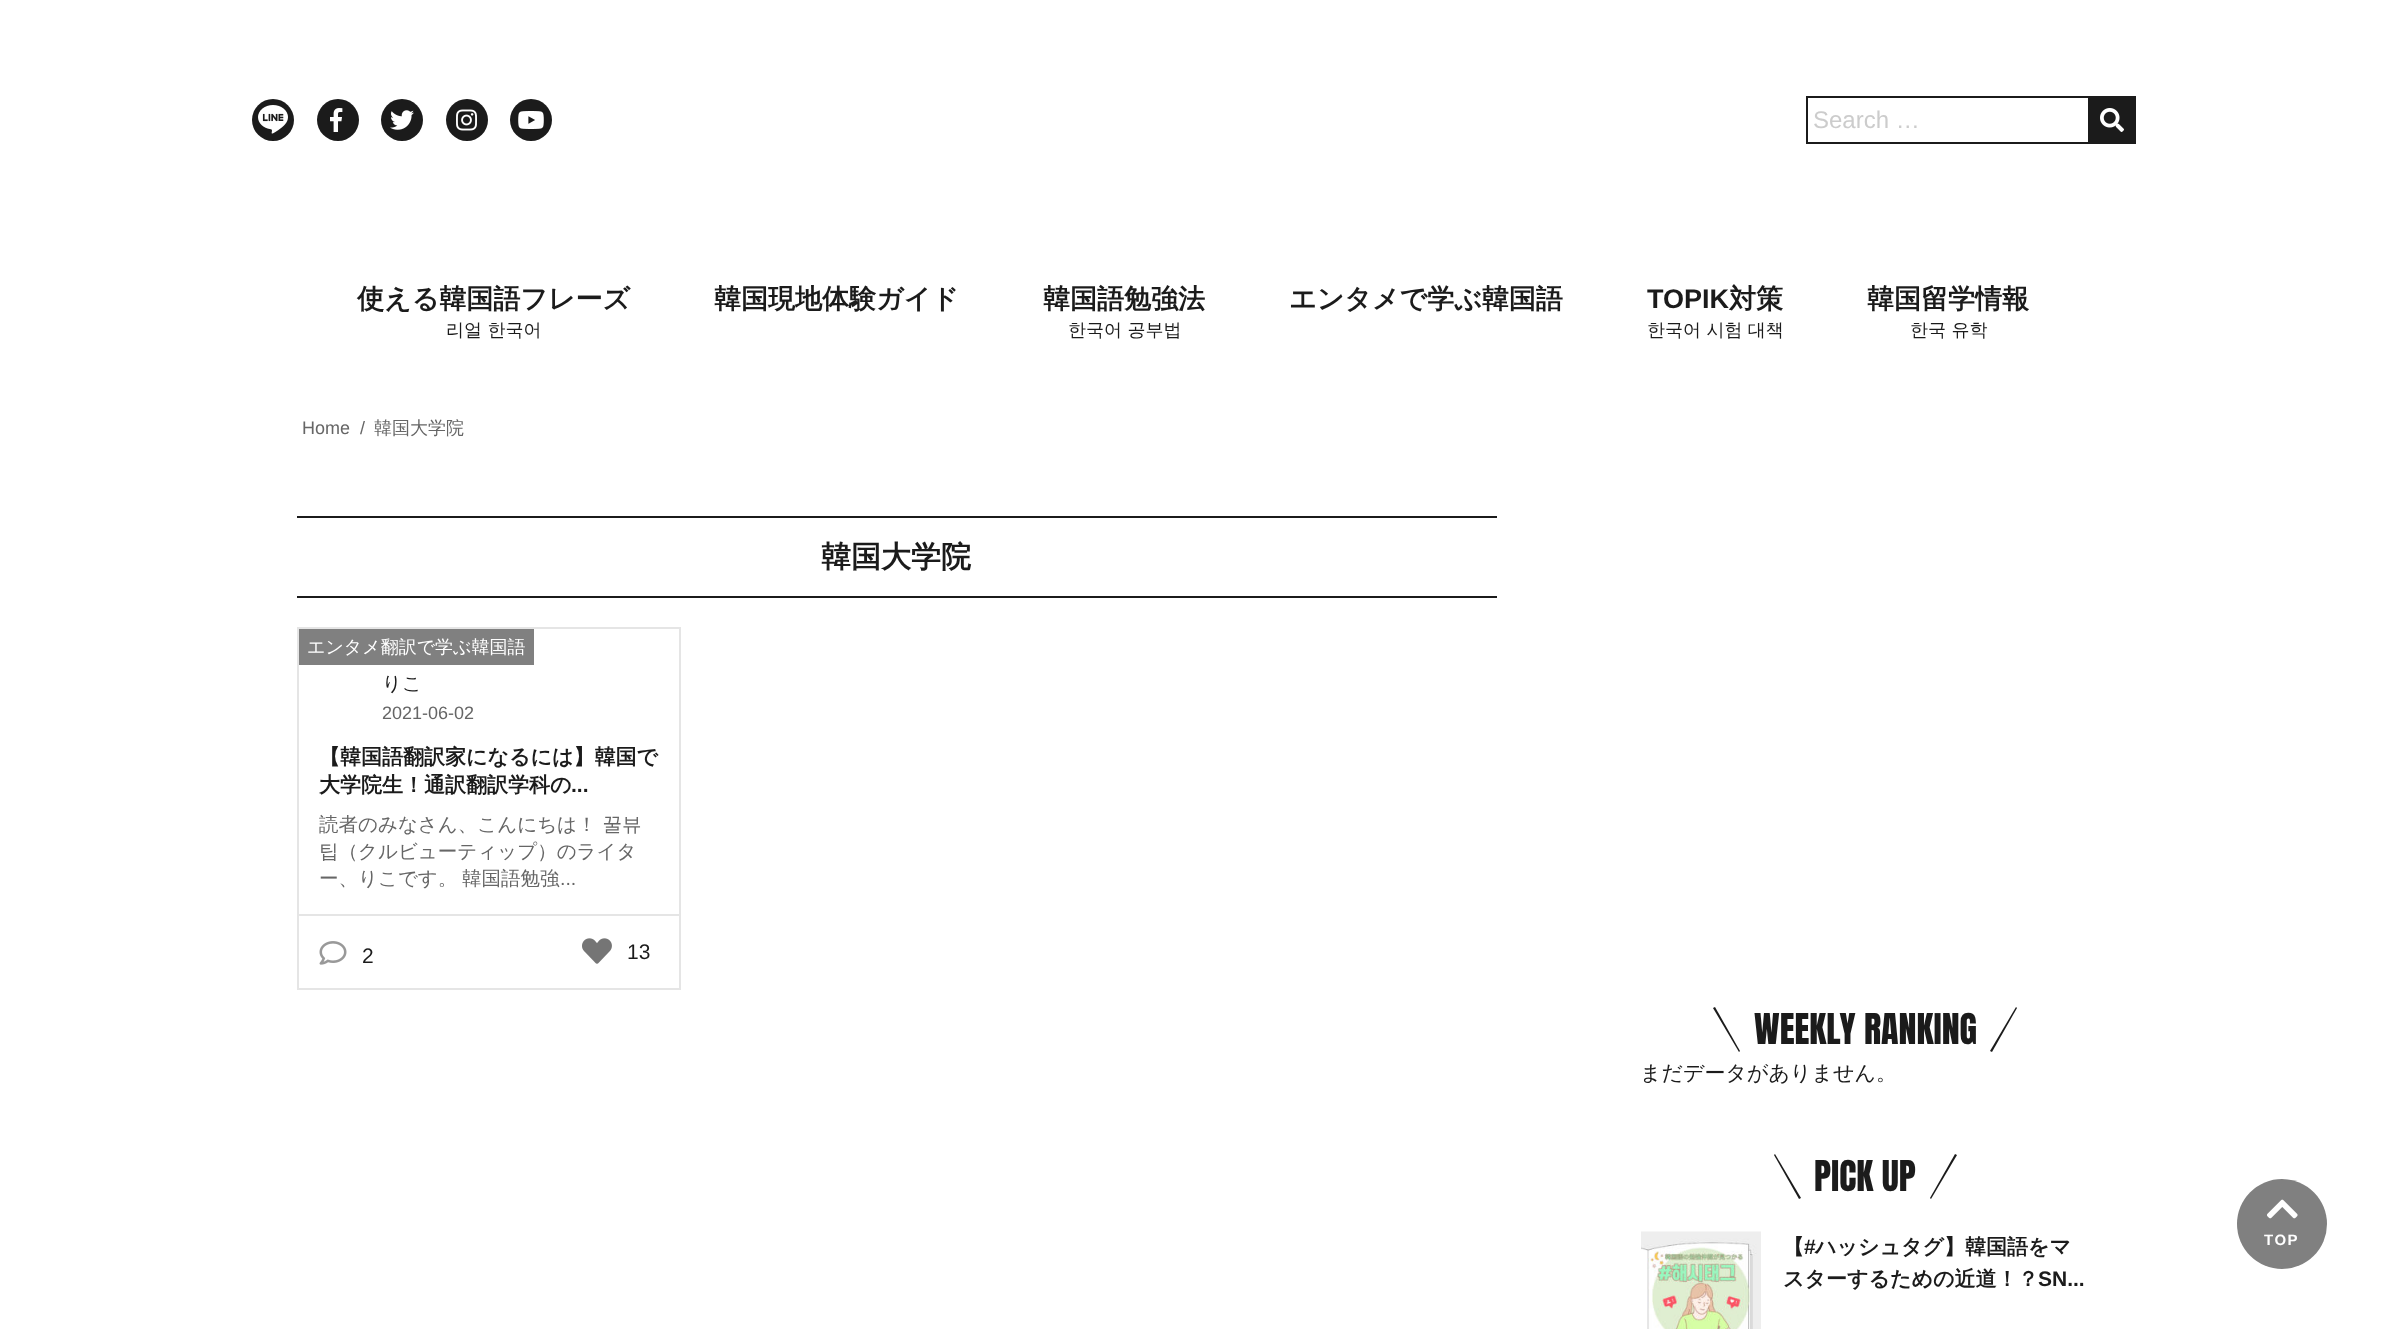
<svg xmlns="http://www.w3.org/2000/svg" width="2386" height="1329">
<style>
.a{font:24px Liberation Sans;fill:#ccc}
.b{font:bold 27px WenQuanYi Zen Hei;fill:#1b1b1b}
.c{font:500 18px WenQuanYi Zen Hei;fill:#1b1b1b}
.d{font:bold 27px Liberation Sans;fill:#1b1b1b}
.e{font:18px Liberation Sans;fill:#666}
.f{font:500 18px WenQuanYi Zen Hei;fill:#666}
.g{font:bold 30px WenQuanYi Zen Hei;fill:#1b1b1b}
.h{font:500 18px WenQuanYi Zen Hei;fill:#fff}
.i{font:500 19.5px WenQuanYi Zen Hei;fill:#1b1b1b}
.j{font:bold 21px WenQuanYi Zen Hei;fill:#1b1b1b}
.k{font:bold 21px Liberation Sans;fill:#1b1b1b}
.l{font:500 19.5px WenQuanYi Zen Hei;fill:#666}
.m{font:19.5px Liberation Sans;fill:#666}
.n{font:21px Liberation Sans;fill:#1b1b1b}
.o{font:36px Anton;fill:#1b1b1b}
.p{font:500 21px WenQuanYi Zen Hei;fill:#1b1b1b}
.q{font:bold 15px Liberation Sans;letter-spacing:1.5px;fill:#fff}
</style>
<rect width="100%" height="100%" fill="#fff"/>
<circle fill="#1b1b1b" cx="273" cy="120" r="21"/>
<image href="1.png" x="258" y="105" width="30" height="29"/>
<circle fill="#1b1b1b" cx="338" cy="120" r="21"/>
<image href="2.png" x="330" y="108" width="13" height="24"/>
<circle fill="#1b1b1b" cx="402" cy="120" r="21"/>
<image href="3.png" x="390" y="110" width="24" height="20"/>
<circle fill="#1b1b1b" cx="467" cy="120" r="21"/>
<image href="4.png" x="456" y="109" width="21" height="22"/>
<circle fill="#1b1b1b" cx="531" cy="120" r="21"/>
<image href="5.png" x="518" y="111" width="26" height="18"/>
<path fill="none" stroke="#1b1b1b" stroke-width="2" d="M1807 97h328v46H1807z"/>
<path fill="#1b1b1b" d="M2088 98h46v44H2088z"/>
<image href="6.png" x="2100" y="108" width="24" height="24"/>
<path fill="#1b1b1b" d="M297 516h1200v2H297z"/>
<path fill="#1b1b1b" d="M297 596h1200v2H297z"/>
<path fill="none" stroke="#e5e5e5" stroke-width="2" d="M298 628h382v361H298z"/>
<path fill="#808080" d="M299 629h235v36H299z"/>
<path fill="#e5e5e5" d="M299 914h381v2H299z"/>
<image href="7.png" x="319" y="941" width="28" height="24"/>
<image href="8.png" x="582" y="938" width="30" height="26"/>
<path fill="#1b1b1b" d="M1715 1007l25 44l-1 1l-26-44z"/>
<path fill="#1b1b1b" d="M1990 1051l26-44l1 1l-25 44z"/>
<path fill="#1b1b1b" d="M1775 1154l26 44l-2 1l-25-44z"/>
<path fill="#1b1b1b" d="M1930 1198l25-44l2 1l-26 44z"/>
<image href="9.png" x="1641" y="1231" width="120" height="98"/>
<circle fill="#808080" cx="2282" cy="1224" r="45"/>
<image href="10.png" x="2267" y="1199" width="31" height="20"/>
<text class="a" x="1813" y="128">Search …</text>
<text class="b" x="357" y="308">使える韓国語フレーズ</text>
<text class="c" x="446" y="336">리얼 한국어</text>
<text class="b" x="714" y="308">韓国現地体験ガイド</text>
<text class="b" x="1043" y="308">韓国語勉強法</text>
<text class="c" x="1068" y="336">한국어 공부법</text>
<text class="b" x="1289" y="308">エンタメで学ぶ韓国語</text>
<text class="d" x="1647" y="308">TOPIK</text>
<text class="b" x="1729" y="308">対策</text>
<text class="c" x="1647" y="336">한국어 시험 대책</text>
<text class="b" x="1867" y="308">韓国留学情報</text>
<text class="c" x="1910" y="336">한국 유학</text>
<text class="e" x="302" y="434">Home</text>
<text class="e" x="360" y="434">/</text>
<text class="f" x="374" y="434">韓国大学院</text>
<text class="g" x="821" y="567">韓国大学院</text>
<text class="h" x="307" y="653">エンタメ翻訳で学ぶ韓国語</text>
<text class="i" x="382" y="690">りこ</text>
<text class="e" x="382" y="719">2021-06-02</text>
<text class="j" x="319" y="764">【韓国語翻訳家になるには】韓国で</text>
<text class="j" x="319" y="792">大学院生！通訳翻訳学科の</text>
<text class="k" x="571" y="792">...</text>
<text class="l" x="319" y="831">読者のみなさん、こんにちは！ 꿀뷰</text>
<text class="l" x="319" y="858">팁（クルビューティップ）のライタ</text>
<text class="l" x="319" y="885">ー、りこです。</text>
<text class="l" x="462" y="885">韓国語勉強</text>
<text class="m" x="560" y="885">...</text>
<text class="n" x="362" y="963">2</text>
<text class="n" x="627" y="959">13</text>
<text class="o" x="1754" y="1044">WEEKLY RANKING</text>
<text class="p" x="1640" y="1080">まだデータがありません。</text>
<text class="o" x="1814" y="1191">PICK UP</text>
<text class="j" x="1783" y="1254">【</text>
<text class="k" x="1804" y="1254">#</text>
<text class="j" x="1815" y="1254">ハッシュタグ】韓国語をマ</text>
<text class="j" x="1783" y="1286">スターするための近道！？</text>
<text class="k" x="2038" y="1286">SN...</text>
<text class="q" x="2264" y="1245">TOP</text>
</svg>
